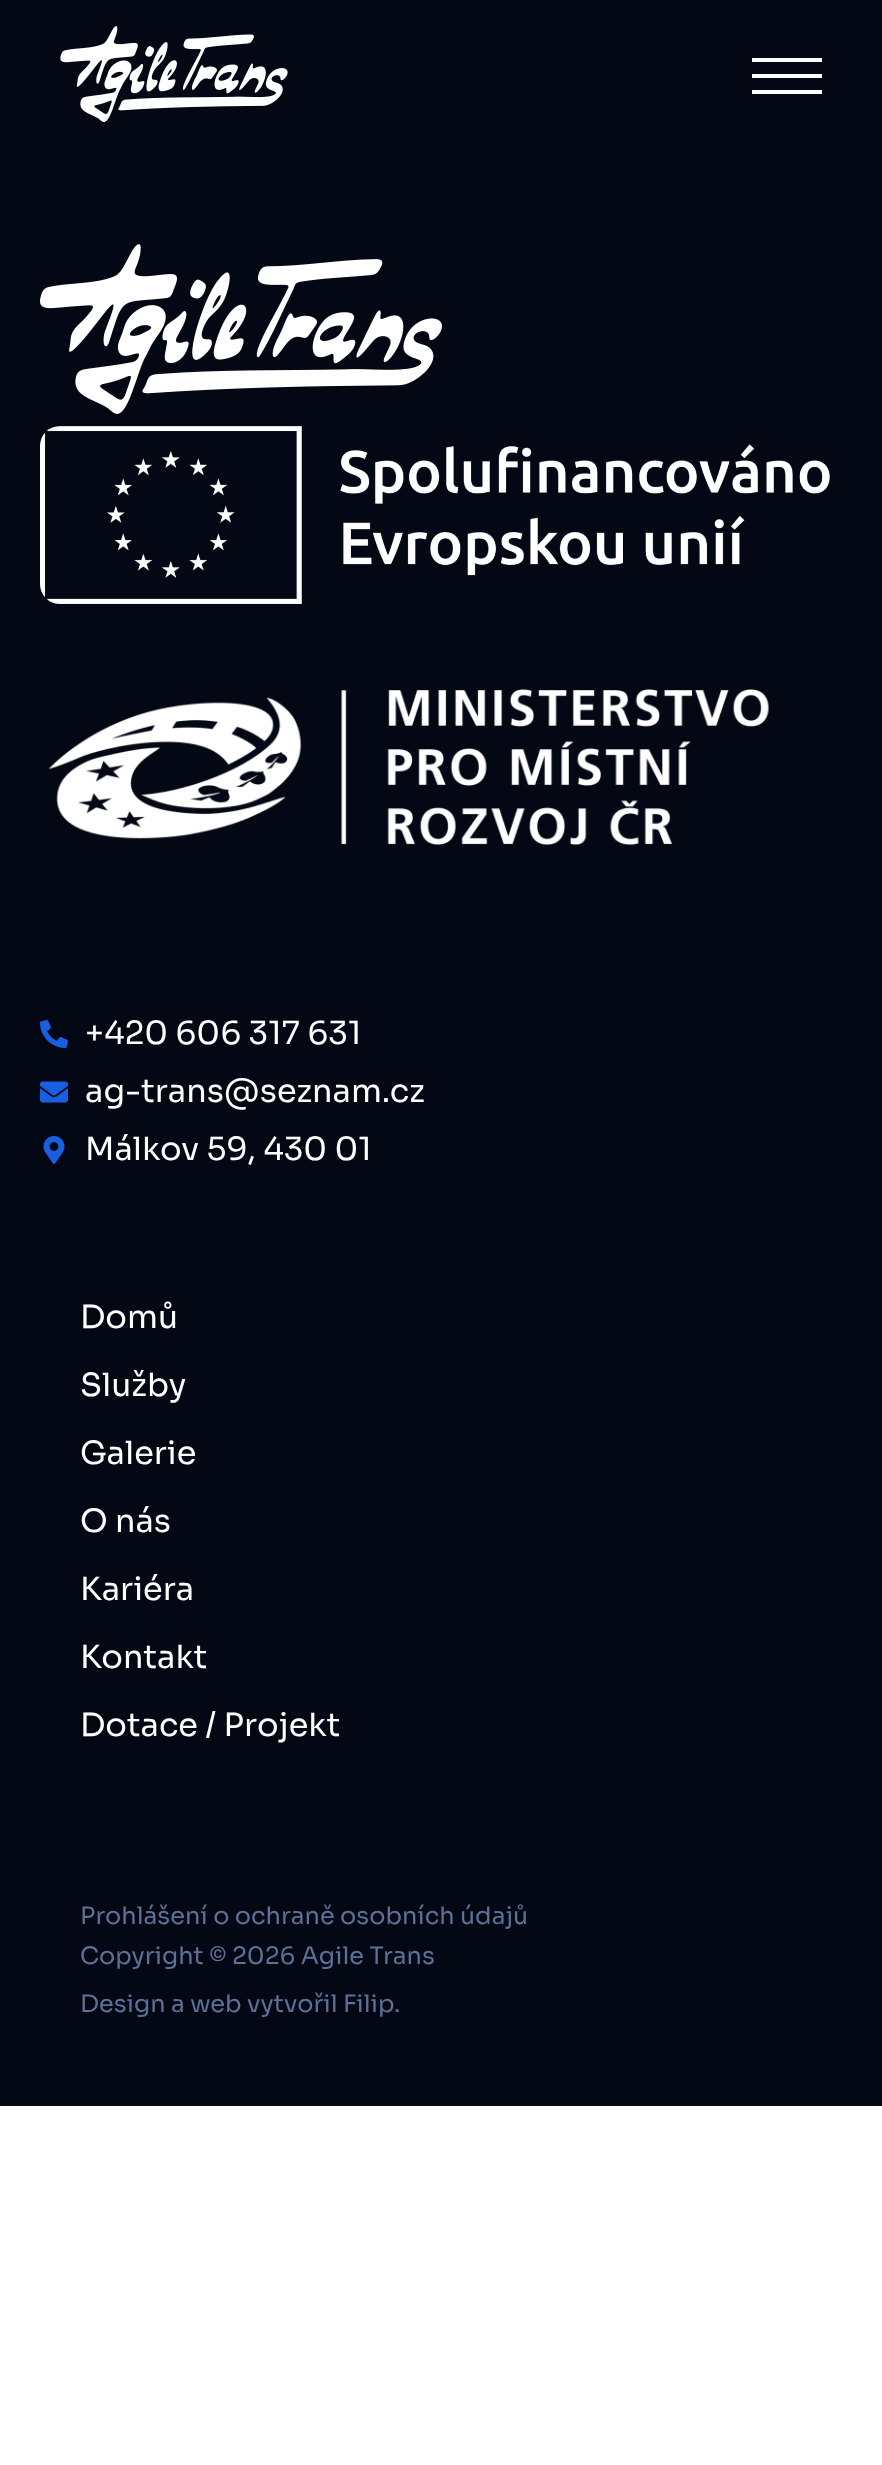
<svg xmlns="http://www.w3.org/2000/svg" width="882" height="2465">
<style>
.a{font:32px Sora;fill:#fff}
.b{font:24px Sora;fill:#5d7196}
</style>
<rect width="100%" height="100%" fill="#fff"/>
<path fill="#030814" d="M0 0h882v2106H0z"/>
<image href="1.png" x="60" y="26" width="228" height="96"/>
<path fill="#fff" d="M752 58h70v4H752z"/>
<path fill="#fff" d="M752 74h70v4H752z"/>
<path fill="#fff" d="M752 90h70v4H752z"/>
<image href="2.png" x="40" y="244" width="402" height="170"/>
<image href="3.png" x="40" y="426" width="790" height="178"/>
<image href="4.png" x="48" y="689" width="721" height="156"/>
<image href="5.png" x="40" y="1020" width="28" height="28"/>
<image href="6.png" x="40" y="1081" width="28" height="22"/>
<image href="7.png" x="43" y="1136" width="22" height="28"/>
<text class="a" x="85" y="1044">+420 606 317 631</text>
<text class="a" x="85" y="1102">ag-trans@seznam.cz</text>
<text class="a" x="85" y="1160">Málkov 59, 430 01</text>
<text class="a" x="80" y="1328">Domů</text>
<text class="a" x="80" y="1396">Služby</text>
<text class="a" x="80" y="1464">Galerie</text>
<text class="a" x="80" y="1532">O nás</text>
<text class="a" x="80" y="1600">Kariéra</text>
<text class="a" x="80" y="1668">Kontakt</text>
<text class="a" x="80" y="1736">Dotace / Projekt</text>
<text class="b" x="80" y="1924">Prohlášení o ochraně osobních údajů</text>
<text class="b" x="80" y="1964">Copyright © 2026 Agile Trans</text>
<text class="b" x="80" y="2012">Design a web vytvořil Filip.</text>
</svg>
